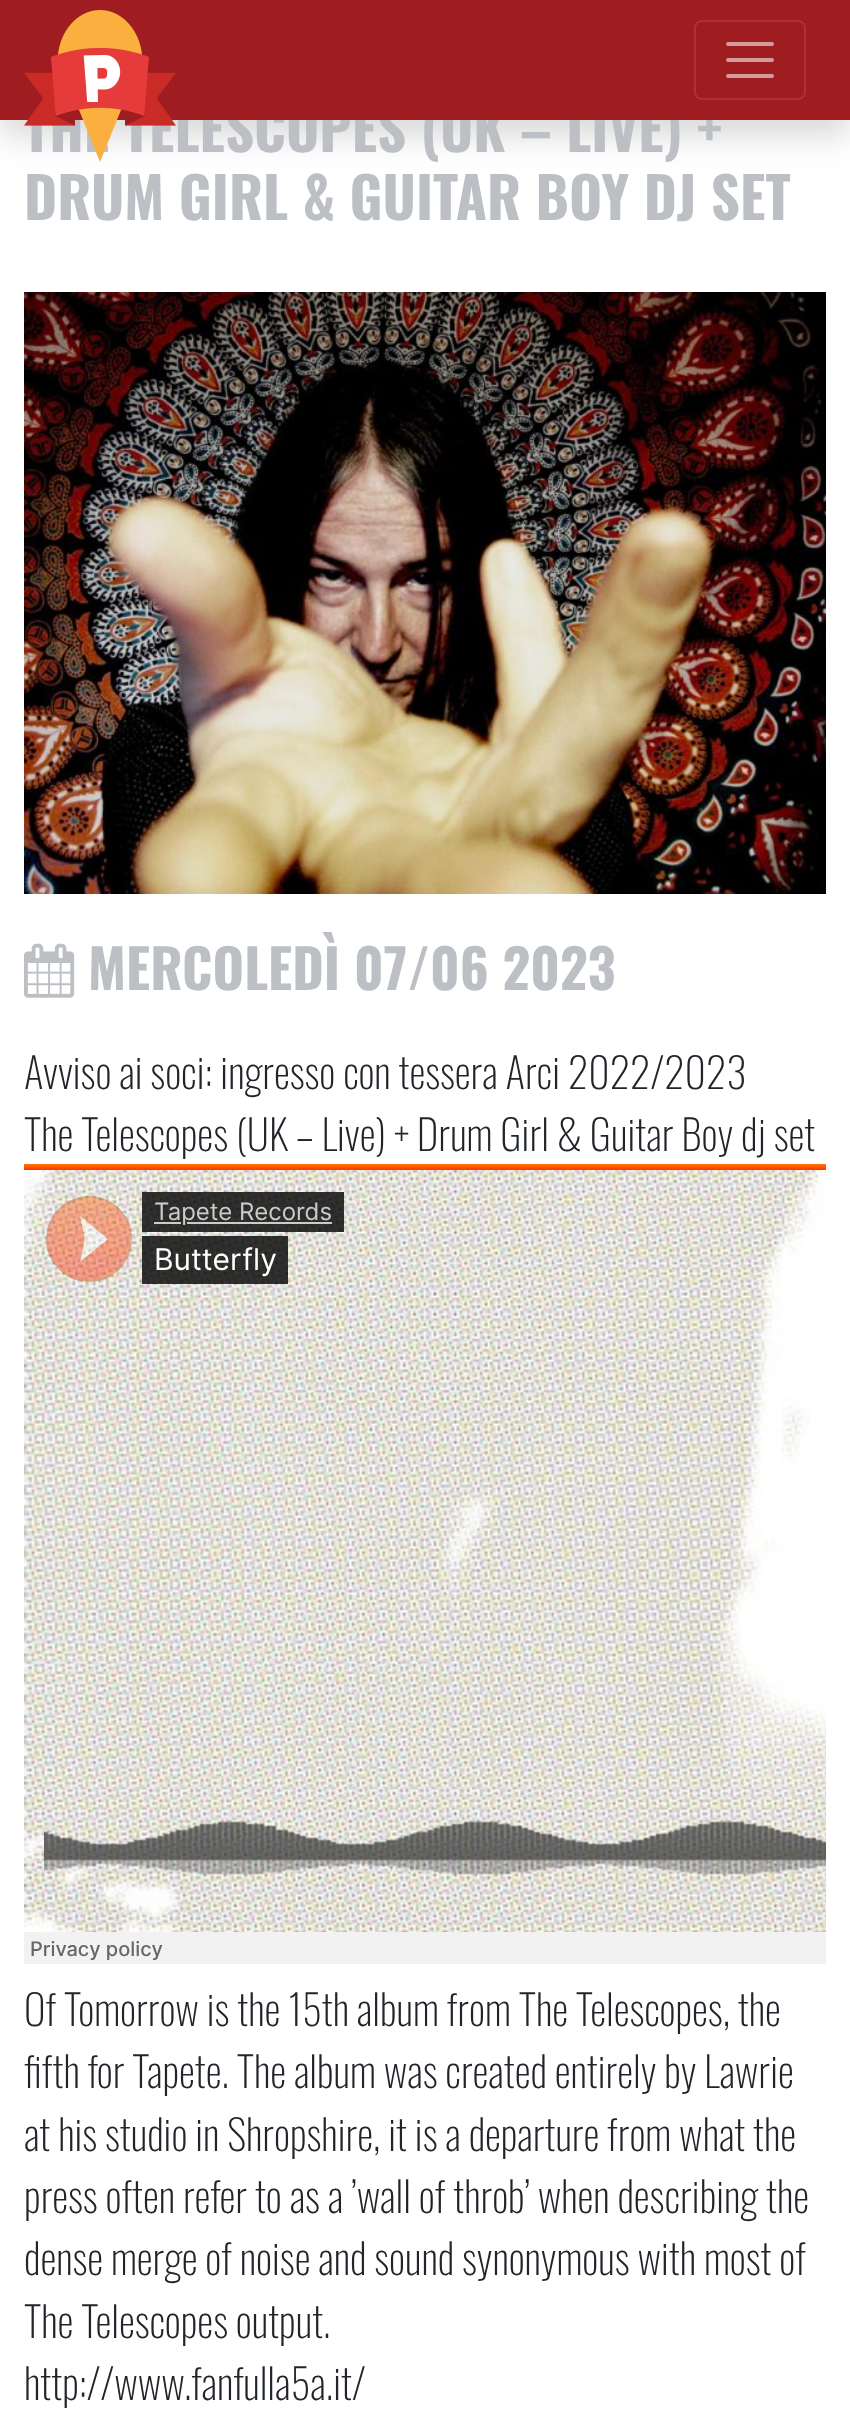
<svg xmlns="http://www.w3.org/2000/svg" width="850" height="2430">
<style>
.a{font:bold 56.75px Oswald;fill:#bcc0c4}
.b{font:bold 54px Oswald;fill:#bcc0c4}
.c{font:200 41.6px Oswald;fill:#212529}
</style>
<rect width="100%" height="100%" fill="#fff"/>
<path fill="#00000026" filter="blur(16px)" d="M0 16h850v120H0z"/>
<image href="2.png" x="24" y="292" width="802" height="602"/>
<image href="3.png" x="24" y="943" width="51" height="55"/>
<image href="4.png" x="24" y="1164" width="802" height="800"/>
<text class="a" x="24" y="152">THE TELESCOPES (UK – LIVE) +</text>
<path fill="#9f1c20" d="M0 0h850v120H0z"/>
<image href="1.png" x="24" y="10" width="152" height="152"/>
<rect fill="none" stroke="#a93336" stroke-width="2" x="695" y="21" width="110" height="78" rx="7"/>
<path fill="none" stroke="#d4999b" stroke-width="4" stroke-linecap="round" d="M728 44h44m-44 16h44m-44 16h44"/>
<text class="a" x="24" y="220">DRUM GIRL &amp; GUITAR BOY DJ SET</text>
<text class="b" x="88" y="990">MERCOLEDÌ 07/06 2023</text>
<text class="c" x="24" y="1089">Avviso ai soci: ingresso con tessera Arci 2022/2023</text>
<text class="c" x="24" y="1151">The Telescopes (UK – Live) + Drum Girl &amp; Guitar Boy dj set</text>
<text class="c" x="24" y="2026">Of Tomorrow is the 15th album from The Telescopes, the</text>
<text class="c" x="24" y="2088">fifth for Tapete. The album was created entirely by Lawrie</text>
<text class="c" x="24" y="2151">at his studio in Shropshire, it is a departure from what the</text>
<text class="c" x="24" y="2213">press often refer to as a ’wall of throb’ when describing the</text>
<text class="c" x="24" y="2275">dense merge of noise and sound synonymous with most of</text>
<text class="c" x="24" y="2338">The Telescopes output.</text>
<text class="c" x="24" y="2400">http://www.fanfulla5a.it/</text>
</svg>
